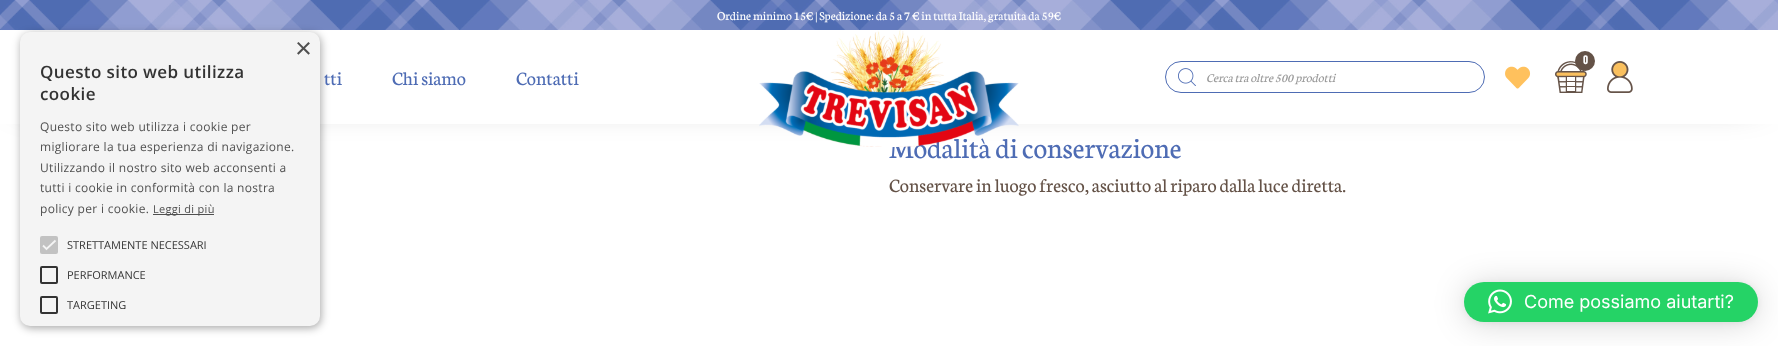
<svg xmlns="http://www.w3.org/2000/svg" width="1778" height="346">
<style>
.a{font:29px Liberation Sans;fill:#505050}
.b{font:600 17px Open Sans;letter-spacing:0.4px;fill:#333}
.c{font:12px Open Sans;letter-spacing:0.3px;fill:#505050}
.d{font:11px Open Sans;letter-spacing:0.3px;fill:#505050}
.e{font:11px Open Sans;fill:#333}
.f{font:12.8px Neuton;fill:#fff}
.g{font:20px Neuton;fill:#4e6cb4}
.h{font:bold 12px Bebas Neue;fill:#fff}
.i{font:italic 12.8px Neuton;fill:#999}
.j{font:30px Neuton;fill:#4e6cb4}
.k{font:20px Neuton;fill:#645247}
.l{font:18px Inter;fill:#fff}
</style>
<rect width="100%" height="100%" fill="#fff"/>
<path fill="#00000096" filter="blur(20.5px)" d="M24 17h1730v76H24z"/>
<path fill="#fff" d="M0 30h1778v94H0z"/>
<image href="1.png" x="0" y="0" width="1778" height="30"/>
<rect fill="#00000059" filter="blur(4px)" x="21" y="34" width="300" height="294" rx="10"/>
<rect fill="#f4f4f4" x="20" y="32" width="300" height="294" rx="10"/>
<path fill="#505050" d="M153 214h61v1H153z"/>
<rect fill="#c2c2c2" x="40" y="236" width="18" height="18" rx="2"/>
<path fill="none" stroke="#f4f4f4" stroke-width="1.8" d="M43 245.5l3.5 3.5l9-8.5"/>
<rect fill="none" stroke="#333" stroke-width="2" x="41" y="267" width="16" height="16" rx="1"/>
<rect fill="none" stroke="#333" stroke-width="2" x="41" y="297" width="16" height="16" rx="1"/>
<image href="3.png" x="1555" y="61" width="32" height="32"/>
<circle fill="#645247" cx="1585" cy="61" r="10"/>
<image href="4.png" x="1178" y="68" width="18" height="18"/>
<rect fill="none" stroke="#4e6cb4" x="1165.5" y="61.5" width="319" height="31" rx="15.5"/>
<image href="5.png" x="1505" y="66" width="26" height="23"/>
<image href="6.png" x="1607" y="61" width="26" height="32"/>
<rect fill="#00000029" filter="blur(16px)" x="1464" y="284" width="294" height="40" rx="20"/>
<rect fill="#0000000f" filter="blur(3px)" x="1464" y="283" width="294" height="40" rx="20"/>
<rect fill="#25d366" x="1464" y="282" width="294" height="40" rx="20"/>
<image href="7.png" x="1488" y="289" width="24" height="25"/>
<text class="a" x="295" y="58">×</text>
<text class="b" x="40" y="78">Questo sito web utilizza</text>
<text class="b" x="40" y="100">cookie</text>
<text class="c" x="40" y="131">Questo sito web utilizza i cookie per</text>
<text class="c" x="40" y="151">migliorare la tua esperienza di navigazione.</text>
<text class="c" x="40" y="172">Utilizzando il nostro sito web acconsenti a</text>
<text class="c" x="40" y="192">tutti i cookie in conformità con la nostra</text>
<text class="c" x="40" y="213">policy per i cookie.</text>
<text class="d" x="153" y="213">Leggi di più</text>
<text class="e" x="67" y="249">STRETTAMENTE NECESSARI</text>
<text class="e" x="67" y="279">PERFORMANCE</text>
<text class="e" x="67" y="309">TARGETING</text>
<text class="f" x="717" y="20">Ordine minimo 15€ | Spedizione: da 5 a 7 € in tutta Italia, gratuita da 59€</text>
<text class="g" x="324" y="85">tti</text>
<text class="g" x="392" y="85">Chi siamo</text>
<text class="g" x="516" y="85">Contatti</text>
<text class="h" x="1583" y="64">0</text>
<text class="i" x="1206" y="82">Cerca tra oltre 500 prodotti</text>
<text class="j" x="889" y="158">Modalità di conservazione</text>
<image href="2.png" x="759" y="30" width="260" height="117"/>
<text class="k" x="889" y="192">Conservare in luogo fresco, asciutto al riparo dalla luce diretta.</text>
<text class="l" x="1524" y="308">Come possiamo aiutarti?</text>
</svg>
